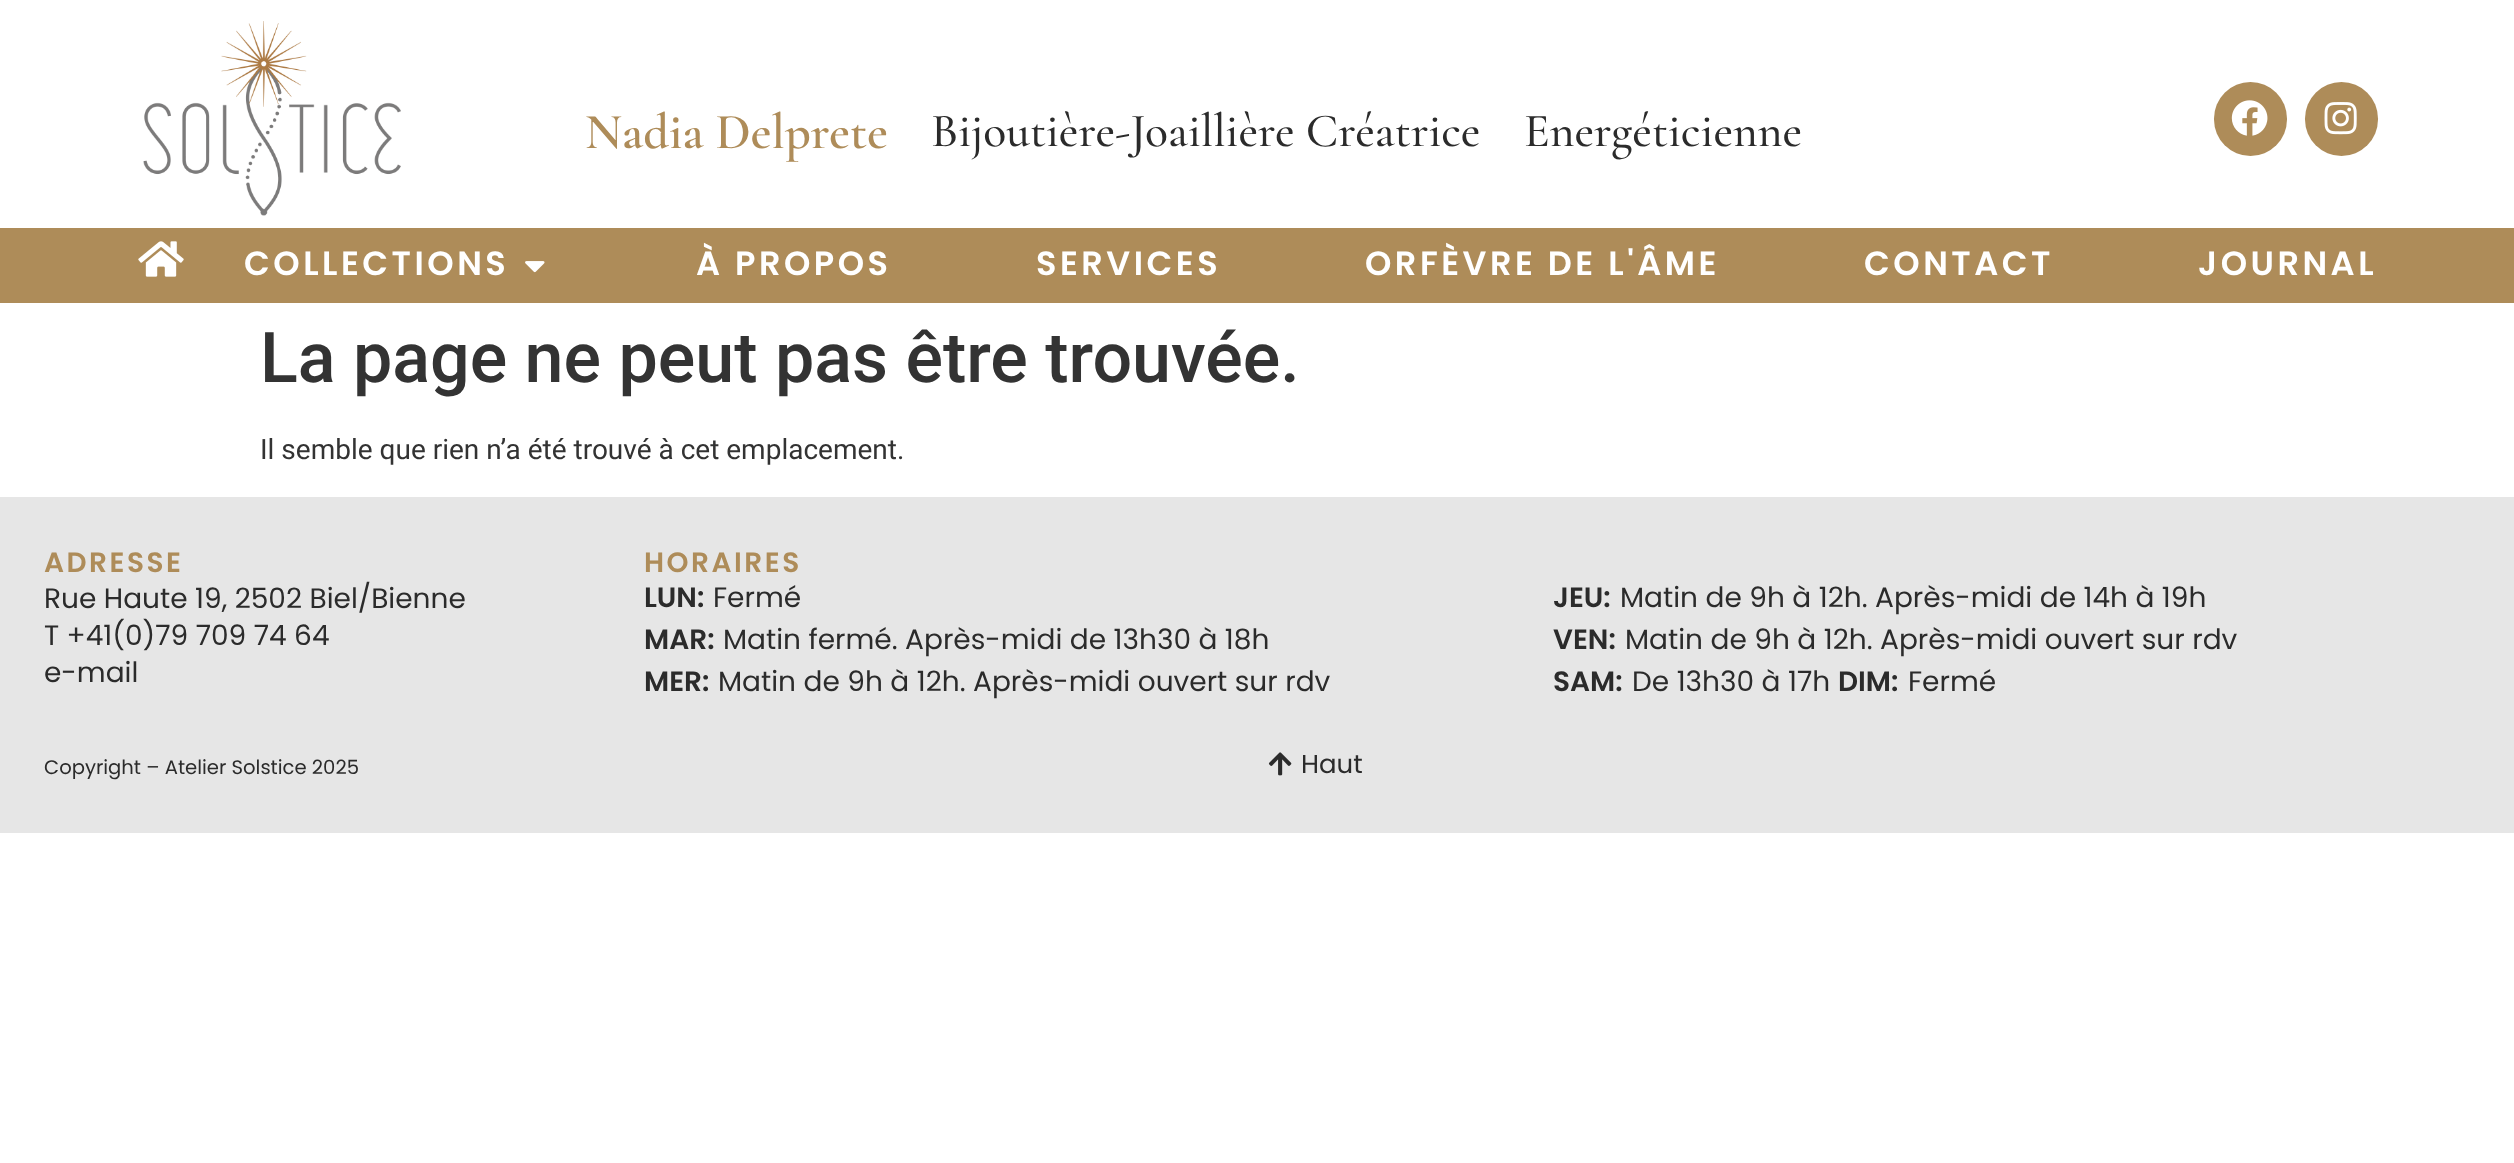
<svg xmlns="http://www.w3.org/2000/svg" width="2514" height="1163">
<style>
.a{font:600 50.5px Cormorant Garamond;fill:#ae8c59}
.b{font:500 47.6px Cormorant Garamond;fill:#2b2b2b}
.c{font:600 33.6px Poppins;letter-spacing:3.5px;fill:#fff}
.d{font:500 70px Roboto;fill:#333}
.e{font:28px Roboto;fill:#333}
.f{font:600 28px Poppins;letter-spacing:2.5px;fill:#ae8c59}
.g{font:28px Poppins;fill:#2b2b2b}
.h{font:600 28px Poppins;fill:#2b2b2b}
.i{font:19.6px Poppins;fill:#2b2b2b}
.j{font:26px Poppins;fill:#2b2b2b}
</style>
<rect width="100%" height="100%" fill="#fff"/>
<image href="1.png" x="143" y="21" width="258" height="195"/>
<rect fill="#ae8c59" x="2214" y="82" width="73" height="74" rx="36.5"/>
<image href="2.png" x="2231" y="100" width="37" height="36"/>
<rect fill="#ae8c59" x="2305" y="82" width="73" height="74" rx="36.5"/>
<image href="3.png" x="2324" y="102" width="33" height="33"/>
<path fill="#ae8c59" d="M0 228h2514v75H0z"/>
<image href="4.png" x="138" y="241" width="46" height="36"/>
<image href="5.png" x="525" y="261" width="20" height="12"/>
<path fill="#e6e6e6" d="M0 497h2514v336H0z"/>
<image href="6.png" x="1268" y="752" width="24" height="24"/>
<text class="a" x="585" y="148">Nadia Delprete</text>
<text class="b" x="931" y="146">Bijoutière-Joaillière Créatrice</text>
<text class="b" x="1524" y="146">Energéticienne</text>
<text class="c" x="244" y="275">COLLECTIONS</text>
<text class="c" x="696" y="275">À PROPOS</text>
<text class="c" x="1036" y="275">SERVICES</text>
<text class="c" x="1365" y="275">ORFÈVRE DE L'ÂME</text>
<text class="c" x="1864" y="275">CONTACT</text>
<text class="c" x="2198" y="275">JOURNAL</text>
<text class="d" x="260" y="382">La page ne peut pas être trouvée.</text>
<text class="e" x="260" y="459">Il semble que rien n’a été trouvé à cet emplacement.</text>
<text class="f" x="44" y="572">ADRESSE</text>
<text class="g" x="44" y="608">Rue Haute 19, 2502 Biel/Bienne</text>
<text class="g" x="44" y="645">T +41(0)79 709 74 64</text>
<text class="g" x="44" y="682">e-mail</text>
<text class="f" x="644" y="572">HORAIRES</text>
<text class="h" x="644" y="607">LUN:</text>
<text class="g" x="713" y="607">Fermé</text>
<text class="h" x="644" y="649">MAR:</text>
<text class="g" x="723" y="649">Matin fermé. Après-midi de 13h30 à 18h</text>
<text class="h" x="644" y="691">MER:</text>
<text class="g" x="718" y="691">Matin de 9h à 12h. Après-midi ouvert sur rdv</text>
<text class="h" x="1553" y="607">JEU:</text>
<text class="g" x="1620" y="607">Matin de 9h à 12h. Après-midi de 14h à 19h</text>
<text class="h" x="1553" y="649">VEN:</text>
<text class="g" x="1625" y="649">Matin de 9h à 12h. Après-midi ouvert sur rdv</text>
<text class="h" x="1553" y="691">SAM:</text>
<text class="g" x="1632" y="691">De 13h30 à 17h</text>
<text class="h" x="1838" y="691">DIM:</text>
<text class="g" x="1908" y="691">Fermé</text>
<text class="i" x="44" y="774">Copyright – Atelier Solstice 2025</text>
<text class="j" x="1301" y="773">Haut</text>
</svg>
